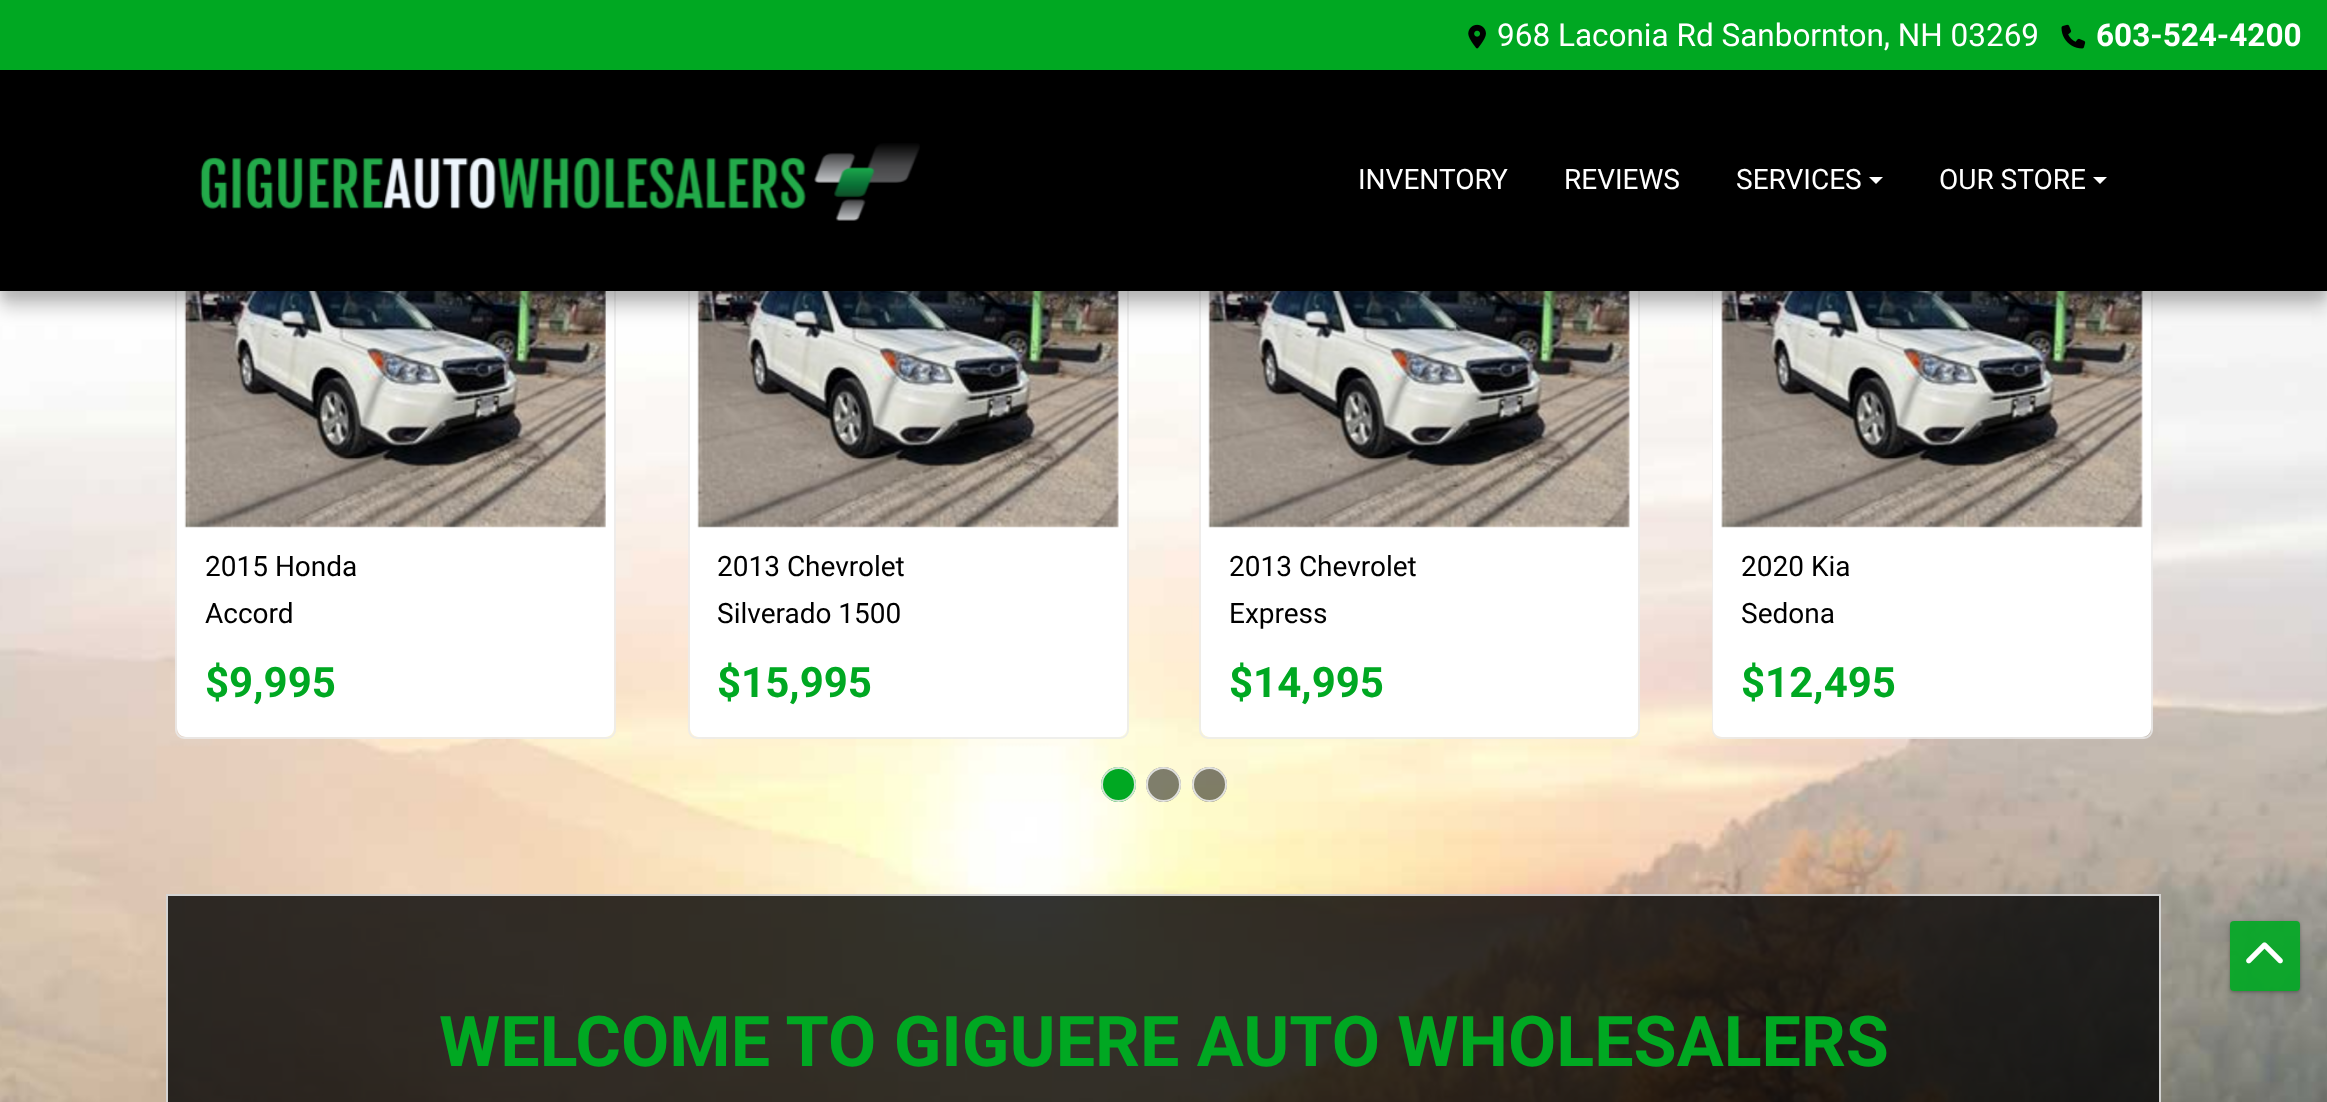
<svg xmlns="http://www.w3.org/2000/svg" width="2327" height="1102">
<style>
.a{font:31.5px Roboto;fill:#fff}
.b{font:bold 31.5px Roboto;fill:#fff}
.c{font:28px Roboto;fill:#fff}
.d{font:28px Roboto;fill:#000}
.e{font:bold 42px Roboto;fill:#00a822}
.f{font:bold 70px Roboto;fill:#00a822}
</style>
<defs>
<clipPath id="clip1"><path d="M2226 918h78v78h-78zm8 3h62c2 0 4 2 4 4v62c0 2-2 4-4 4h-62c-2 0-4-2-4-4v-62c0-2 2-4 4-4z" clip-rule="evenodd"/></clipPath>
<clipPath id="clip2"><path d="M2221 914h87v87h-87zm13 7h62c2 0 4 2 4 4v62c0 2-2 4-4 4h-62c-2 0-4-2-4-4v-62c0-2 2-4 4-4z" clip-rule="evenodd"/></clipPath>
<clipPath id="clip3"><rect x="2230" y="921" width="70" height="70" rx="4"/></clipPath>
<clipPath id="clip4"><path d="M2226 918h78v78h-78zm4 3h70v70h-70z" clip-rule="evenodd"/></clipPath>
</defs>
<rect width="100%" height="100%" fill="#fff"/>
<image href="1.png" x="0" y="291" width="2327" height="811"/>
<rect fill="none" stroke="#ebebebcc" stroke-width="2" x="176" y="202" width="439" height="536" rx="8"/>
<path fill="#fff" d="M177 340h437v304H177z"/>
<image href="5.png" x="184" y="291" width="422" height="237"/>
<rect fill="none" stroke="#ebebebcc" stroke-width="2" x="689" y="202" width="439" height="536" rx="8"/>
<path fill="#fff" d="M690 352h437v292H690z"/>
<image href="6.png" x="697" y="291" width="422" height="237"/>
<rect fill="none" stroke="#ebebebcc" stroke-width="2" x="1200" y="202" width="439" height="536" rx="8"/>
<path fill="#fff" d="M1201 298h437v346H1201z"/>
<image href="7.png" x="1208" y="291" width="422" height="237"/>
<rect fill="none" stroke="#ebebebcc" stroke-width="2" x="1713" y="202" width="439" height="536" rx="8"/>
<path fill="#fff" d="M1713 291h438v353H1713z"/>
<image href="8.png" x="1721" y="291" width="422" height="237"/>
<path fill="#0000001a" filter="blur(4.5px)" d="M0 9h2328v290H0z"/>
<path fill="#00000033" filter="blur(9px)" d="M0 18h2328v290H0z"/>
<path fill="#000" d="M0 70h2327v221H0z"/>
<path fill="#00a822" d="M0 0h2327v70H0z"/>
<image href="2.png" x="1468" y="24" width="18" height="25"/>
<image href="3.png" x="2061" y="24" width="25" height="25"/>
<image href="4.png" x="200" y="143" width="720" height="78"/>
<path fill="#fff" d="M1869 177h14l-7 7z"/>
<path fill="#fff" d="M2093 177h14l-7 7z"/>
<path fill="#fff" d="M177 644h437v84c0 5-4 9-9 9h-419c-5 0-9-4-9-9z"/>
<path fill="#fff" d="M690 644h437v84c0 5-4 9-9 9h-419c-5 0-9-4-9-9z"/>
<path fill="#fff" d="M1201 644h437v84c0 5-4 9-9 9h-419c-5 0-9-4-9-9z"/>
<path fill="#fff" d="M1713 644h438v84c0 5-4 9-9 9h-420c-5 0-9-4-9-9z"/>
<circle fill="#00a822" cx="1118.5" cy="784.5" r="17.5"/>
<circle fill="none" stroke="#ebebebe6" stroke-width="2" cx="1118.5" cy="784.5" r="16.5"/>
<circle fill="#00000080" cx="1163.5" cy="784.5" r="17.5"/>
<circle fill="none" stroke="#ebebebe6" stroke-width="2" cx="1163.5" cy="784.5" r="16.5"/>
<circle fill="#00000080" cx="1209.5" cy="784.5" r="17.5"/>
<circle fill="none" stroke="#ebebebe6" stroke-width="2" cx="1209.5" cy="784.5" r="16.5"/>
<path fill="#000000cc" d="M166 894h1995v208H166z"/>
<path fill="none" stroke="#ffffffcc" stroke-width="2" d="M167 895h1993v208H167z"/>
<g clip-path="url(#clip1)">
<rect fill="#00000033" filter="blur(1px)" x="2230" y="922" width="70" height="70" rx="4"/>
</g>
<g clip-path="url(#clip2)">
<rect fill="#0000001a" filter="blur(2px)" x="2228" y="921" width="73" height="73" rx="5"/>
</g>
<rect fill="#00a822e6" x="2230" y="921" width="70" height="70" rx="4"/>
<g clip-path="url(#clip3)">
<g clip-path="url(#clip4)">
<path fill="#00000033" filter="blur(1px)" d="M2230 922h70v70H2230z"/>
</g>
</g>
<image href="9.png" x="2246" y="942" width="37" height="22"/>
<text class="a" x="1497" y="46">968 Laconia Rd Sanbornton, NH 03269</text>
<text class="b" x="2096" y="46">603-524-4200</text>
<text class="c" x="1358" y="189">INVENTORY</text>
<text class="c" x="1564" y="189">REVIEWS</text>
<text class="c" x="1736" y="189">SERVICES</text>
<text class="c" x="1939" y="189">OUR STORE</text>
<text class="d" x="205" y="576">2015 Honda</text>
<text class="d" x="205" y="623">Accord</text>
<text class="e" x="205" y="697">$9,995</text>
<text class="d" x="717" y="576">2013 Chevrolet</text>
<text class="d" x="717" y="623">Silverado 1500</text>
<text class="e" x="717" y="697">$15,995</text>
<text class="d" x="1229" y="576">2013 Chevrolet</text>
<text class="d" x="1229" y="623">Express</text>
<text class="e" x="1229" y="697">$14,995</text>
<text class="d" x="1741" y="576">2020 Kia</text>
<text class="d" x="1741" y="623">Sedona</text>
<text class="e" x="1741" y="697">$12,495</text>
<text class="f" x="439" y="1066">WELCOME TO GIGUERE AUTO WHOLESALERS</text>
</svg>
